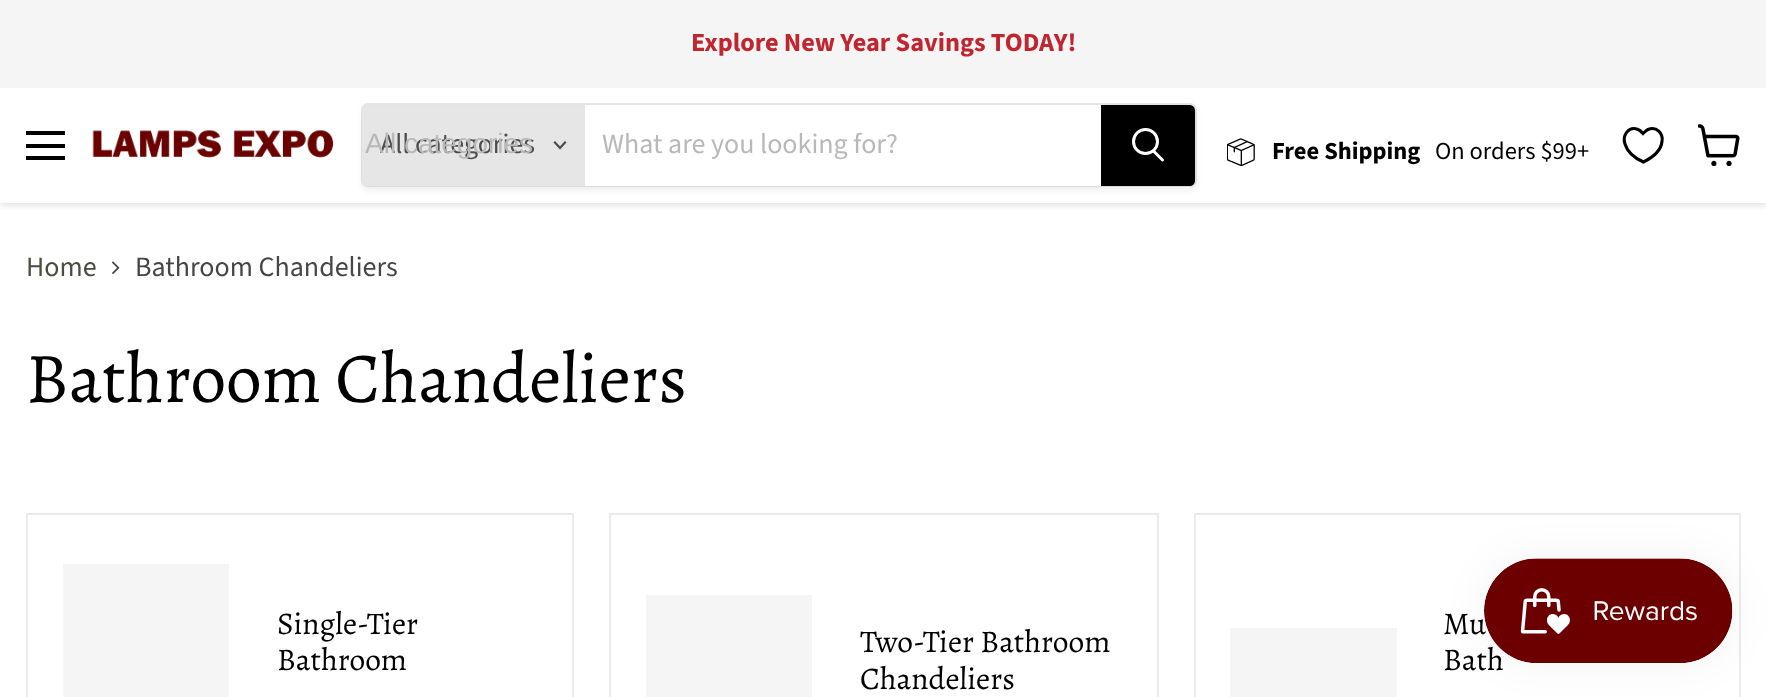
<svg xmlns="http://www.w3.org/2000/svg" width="1766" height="697">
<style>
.a{font:bold 26.25px Source Sans Pro;fill:#bf262f}
.b{font:28px Source Sans Pro;fill:#4d4d4d}
.c{font:28px Liberation Sans;fill:#b8b8b8}
.d{font:28px Source Sans Pro;fill:#b8b8b8}
.e{font:bold 24.5px Source Sans Pro;fill:#000}
.f{font:24.5px Source Sans Pro;fill:#000}
.g{font:28px Source Sans Pro;fill:#494d41}
.h{font:28px Source Sans Pro;fill:#464646}
.i{font:71.5px Alegreya;fill:#000}
.j{font:31.5px Alegreya;fill:#000}
</style>
<defs>
<clipPath id="clip1"><path d="M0 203h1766v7H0z"/></clipPath>
</defs>
<rect width="100%" height="100%" fill="#fff"/>
<g clip-path="url(#clip1)">
<path fill="#80808040" filter="blur(3.5px)" d="M0 89h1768v116H0z"/>
</g>
<path fill="#f5f5f5" d="M0 0h1766v88H0z"/>
<path fill="#000" d="M26 131h39v4H26z"/>
<path fill="#000" d="M26 144h39v4H26z"/>
<path fill="#000" d="M26 156h39v4H26z"/>
<image href="1.png" x="92" y="130" width="242" height="28"/>
<rect fill="#8080801c" filter="blur(2.5px)" x="361" y="107" width="836" height="84" rx="7"/>
<rect fill="none" stroke="#80808033" stroke-width="2" x="362" y="104" width="834" height="82" rx="6"/>
<path fill="#e6e6e6" d="M367 105h218v81h-218c-3 0-5-2-5-5v-71c0-3 2-5 5-5z"/>
<path fill="none" stroke="#4d4d4d" stroke-width="2.2" stroke-linecap="square" d="M560 148l5-5.5m-5 5.5l-5-5.5"/>
<path fill="#fff" d="M585 105h516v81H585z"/>
<path fill="#000" stroke="#000" stroke-width="2" d="M1102 106h88c2 0 4 2 4 4v71c0 2-2 4-4 4h-88z"/>
<path fill="none" stroke="#fff" stroke-width="3" stroke-linecap="round" d="M1162.5 160l-8.5-8.5"/>
<circle fill="none" stroke="#fff" stroke-width="3" cx="1145.5" cy="141.5" r="12"/>
<image href="2.png" x="1227" y="138" width="28" height="28"/>
<path fill="none" stroke="#000" stroke-width="3.1" d="M1643.5 162c-8-3.5-16-9.5-18.5-18c-3-9 4-18.5 13-14.5c2.5 1 3.5 2.5 5 4c1.5-1.5 3-3 5-4c8.5-3.5 15.5 4 14 12c-1 9.5-10.5 16.5-18.5 20.5z"/>
<image href="3.png" x="1698" y="124" width="42" height="42"/>
<image href="4.png" x="112" y="261" width="8" height="13"/>
<path fill="none" stroke="#ebebeb" stroke-width="2" d="M27 514h546v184H27z"/>
<path fill="#f5f5f5" d="M63 564h166v133H63z"/>
<path fill="none" stroke="#80808029" stroke-width="2" d="M610 514h548v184H610z"/>
<path fill="#f5f5f5" d="M646 595h166v102H646z"/>
<path fill="none" stroke="#ebebeb" stroke-width="2" d="M1195 514h545v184H1195z"/>
<path fill="#f5f5f5" d="M1230 628h167v69H1230z"/>
<rect fill="#0000000d" filter="blur(22px)" x="1484" y="558" width="249" height="105" rx="52.5"/>
<text class="a" x="691" y="51">Explore New Year Savings TODAY!</text>
<text class="b" x="380" y="153">All categories</text>
<text class="c" x="365" y="153">All categories</text>
<text class="d" x="602" y="153">What are you looking for?</text>
<text class="e" x="1272" y="159">Free Shipping</text>
<text class="f" x="1435" y="159">On orders $99+</text>
<text class="g" x="26" y="276">Home</text>
<text class="h" x="135" y="276">Bathroom Chandeliers</text>
<text class="i" x="26" y="402">Bathroom Chandeliers</text>
<text class="j" x="277" y="634">Single-Tier</text>
<text class="j" x="277" y="670">Bathroom</text>
<text class="j" x="860" y="652">Two-Tier Bathroom</text>
<text class="j" x="860" y="689">Chandeliers</text>
<text class="j" x="1443" y="634">Mu</text>
<text class="j" x="1443" y="670">Bath</text>
<image href="5.png" x="1484" y="558" width="249" height="105"/>
</svg>
